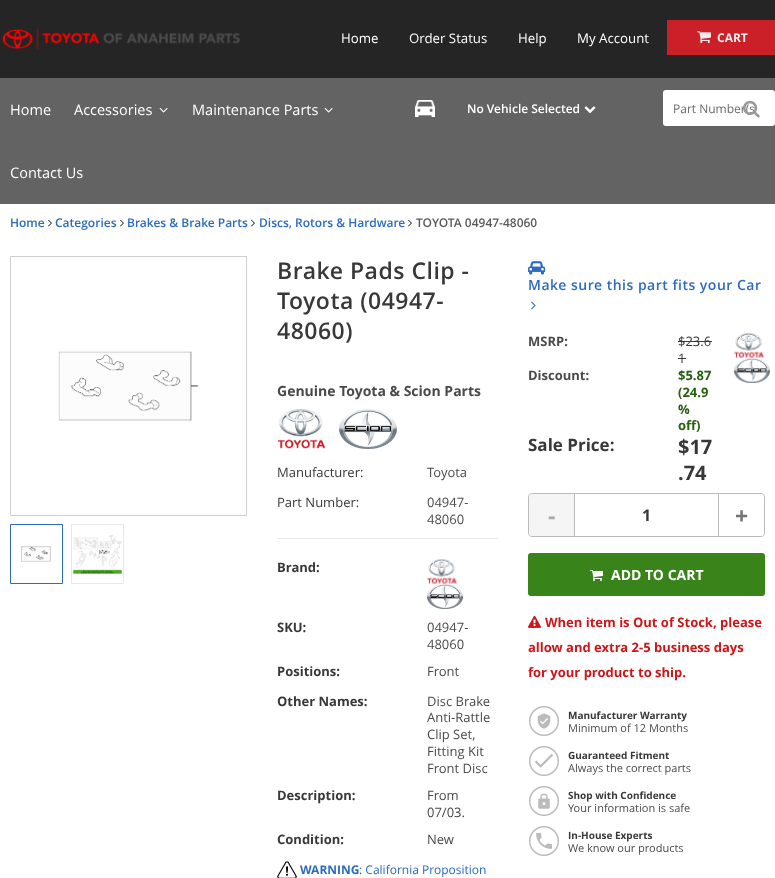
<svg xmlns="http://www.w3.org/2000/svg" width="775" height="878">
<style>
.a{font:13.25px Open Sans;fill:#fff}
.b{font:bold 12px Open Sans;fill:#eee}
.c{font:14.5px Open Sans;fill:#fff}
.d{font:600 12px Open Sans;fill:#fff}
.e{font:12px Open Sans;fill:#6b6b6b}
.f{font:600 12px Open Sans;fill:#2b6cc0}
.g{font:600 12px Open Sans;fill:#5a5a5a}
.h{font:600 23px Open Sans;letter-spacing:0.5px;fill:#383838}
.i{font:bold 14px Open Sans;fill:#4a4a4a}
.j{font:13px Open Sans;fill:#383838}
.k{font:13px Open Sans;fill:#4a4a4a}
.l{font:bold 13px Open Sans;fill:#383838}
.m{font:bold 12px Open Sans;fill:#2b6cc0}
.n{font:12px Open Sans;fill:#2b6cc0}
.o{font:600 14px Open Sans;letter-spacing:0.5px;fill:#2b6cc0}
.p{font:bold 13px Open Sans;fill:#4a4a4a}
.q{font:bold 13px Open Sans;fill:#27600f}
.r{font:bold 17px Open Sans;fill:#383838}
.s{font:bold 20px Open Sans;fill:#383838}
.t{font:bold 23px Open Sans;fill:#aaa}
.u{font:bold 16px Open Sans;fill:#383838}
.v{font:bold 23px Open Sans;fill:#757373}
.w{font:bold 14px Open Sans;fill:#fff}
.x{font:bold 13px Open Sans;fill:#cc1619}
.y{font:bold 10px Open Sans;fill:#383838}
.z{font:11px Open Sans;fill:#4a4a4a}
</style>
<rect width="100%" height="100%" fill="#fff"/>
<path fill="#252525" d="M0 0h775v78H0z"/>
<image href="1.png" x="2" y="28" width="238" height="22"/>
<path fill="#cb2027" d="M667 20h108v35H667z"/>
<image href="2.png" x="697" y="31" width="14" height="13"/>
<path fill="#636363" d="M0 78h775v126H0z"/>
<image href="3.png" x="159" y="108" width="9" height="5"/>
<image href="3.png" x="324" y="108" width="9" height="5"/>
<image href="4.png" x="415" y="100" width="20" height="17"/>
<image href="5.png" x="584" y="106" width="12" height="8"/>
<rect fill="#fff" x="663" y="90" width="112" height="36" rx="3"/>
<image href="7.png" x="48" y="219" width="4" height="8"/>
<image href="7.png" x="120" y="219" width="4" height="8"/>
<image href="7.png" x="251" y="219" width="4" height="8"/>
<image href="7.png" x="408" y="219" width="4" height="8"/>
<path fill="none" stroke="#cfcfcf" d="M10.5 256.5h236v259H10.5z"/>
<image href="8.png" x="58" y="351" width="141" height="70"/>
<path fill="none" stroke="#2b6cc0" d="M10.5 524.5h52v59H10.5z"/>
<image href="9.png" x="21" y="546" width="30" height="16"/>
<path fill="none" stroke="#e8e8e8" d="M71.5 524.5h52v59H71.5z"/>
<image href="10.png" x="73" y="535" width="49" height="39"/>
<image href="11.png" x="277" y="409" width="49" height="40"/>
<image href="12.png" x="339" y="409" width="58" height="40"/>
<path fill="#e8e8e8" d="M277 538h221v1H277z"/>
<image href="13.png" x="427" y="559" width="31" height="25"/>
<image href="14.png" x="427" y="584" width="36" height="25"/>
<image href="15.png" x="277" y="861" width="20" height="17"/>
<image href="16.png" x="528" y="261" width="18" height="14"/>
<image href="17.png" x="531" y="301" width="5" height="9"/>
<path fill="#383838" d="M678 341h34v1H678z"/>
<path fill="#383838" d="M678 358h8v1H678z"/>
<image href="18.png" x="734" y="333" width="31" height="25"/>
<image href="19.png" x="733" y="358" width="37" height="25"/>
<rect fill="none" stroke="#bcbbbb" x="528.5" y="493.5" width="236" height="43" rx="3.5"/>
<path fill="#f5f5f5" d="M532 494h43v42h-43c-1.5 0-3-1.5-3-3v-36c0-1.5 1.5-3 3-3z"/>
<path fill="#bcbbbb" d="M574 494h1v42H574z"/>
<path fill="#fff" d="M718 494h43c1.5 0 3 1.5 3 3v36c0 1.5-1.5 3-3 3h-43z"/>
<path fill="#bcbbbb" d="M718 494h1v42H718z"/>
<rect fill="#38841a" x="528" y="553" width="237" height="43" rx="3"/>
<image href="20.png" x="590" y="570" width="13" height="11"/>
<image href="21.png" x="528" y="615" width="13" height="13"/>
<image href="22.png" x="529" y="706" width="30" height="30"/>
<image href="23.png" x="529" y="746" width="30" height="30"/>
<image href="24.png" x="529" y="786" width="30" height="30"/>
<image href="25.png" x="529" y="826" width="30" height="30"/>
<text class="a" x="341" y="43">Home</text>
<text class="a" x="409" y="43">Order Status</text>
<text class="a" x="518" y="43">Help</text>
<text class="a" x="577" y="43">My Account</text>
<text class="b" x="717" y="42">CART</text>
<text class="c" x="10" y="115">Home</text>
<text class="c" x="74" y="115">Accessories</text>
<text class="c" x="192" y="115">Maintenance Parts</text>
<text class="c" x="10" y="178">Contact Us</text>
<text class="d" x="467" y="113">No Vehicle Selected</text>
<text class="e" x="673" y="113">Part Number(s</text>
<image href="6.png" x="743" y="100" width="17" height="18"/>
<text class="f" x="10" y="227">Home</text>
<text class="f" x="55" y="227">Categories</text>
<text class="f" x="127" y="227">Brakes &amp; Brake Parts</text>
<text class="f" x="259" y="227">Discs, Rotors &amp; Hardware</text>
<text class="g" x="416" y="227">TOYOTA 04947-48060</text>
<text class="h" x="277" y="279">Brake Pads Clip -</text>
<text class="h" x="277" y="309">Toyota (04947-</text>
<text class="h" x="277" y="339">48060)</text>
<text class="i" x="277" y="396">Genuine Toyota &amp; Scion Parts</text>
<text class="j" x="277" y="477">Manufacturer:</text>
<text class="k" x="427" y="477">Toyota</text>
<text class="j" x="277" y="507">Part Number:</text>
<text class="k" x="427" y="507">04947-</text>
<text class="k" x="427" y="524">48060</text>
<text class="l" x="277" y="572">Brand:</text>
<text class="l" x="277" y="632">SKU:</text>
<text class="k" x="427" y="632">04947-</text>
<text class="k" x="427" y="649">48060</text>
<text class="l" x="277" y="676">Positions:</text>
<text class="k" x="427" y="676">Front</text>
<text class="l" x="277" y="706">Other Names:</text>
<text class="k" x="427" y="706">Disc Brake</text>
<text class="k" x="427" y="722">Anti-Rattle</text>
<text class="k" x="427" y="739">Clip Set,</text>
<text class="k" x="427" y="756">Fitting Kit</text>
<text class="k" x="427" y="773">Front Disc</text>
<text class="l" x="277" y="800">Description:</text>
<text class="k" x="427" y="800">From</text>
<text class="k" x="427" y="817">07/03.</text>
<text class="l" x="277" y="844">Condition:</text>
<text class="k" x="427" y="844">New</text>
<text class="m" x="300" y="874">WARNING</text>
<text class="n" x="359" y="874">: California Proposition</text>
<text class="o" x="528" y="290">Make sure this part fits your Car</text>
<text class="p" x="528" y="346">MSRP:</text>
<text class="j" x="678" y="346">$23.6</text>
<text class="j" x="678" y="363">1</text>
<text class="p" x="528" y="380">Discount:</text>
<text class="q" x="678" y="380">$5.87</text>
<text class="q" x="678" y="397">(24.9</text>
<text class="q" x="678" y="414">%</text>
<text class="q" x="678" y="430">off)</text>
<text class="r" x="528" y="451">Sale Price:</text>
<text class="s" x="678" y="454">$17</text>
<text class="s" x="678" y="480">.74</text>
<text class="t" x="548" y="524">-</text>
<text class="u" x="642" y="521">1</text>
<text class="v" x="735" y="524">+</text>
<text class="w" x="611" y="580">ADD TO CART</text>
<text class="x" x="545" y="627">When item is Out of Stock, please</text>
<text class="x" x="528" y="652">allow and extra 2-5 business days</text>
<text class="x" x="528" y="677">for your product to ship.</text>
<text class="y" x="568" y="719">Manufacturer Warranty</text>
<text class="z" x="568" y="732">Minimum of 12 Months</text>
<text class="y" x="568" y="759">Guaranteed Fitment</text>
<text class="z" x="568" y="772">Always the correct parts</text>
<text class="y" x="568" y="799">Shop with Confidence</text>
<text class="z" x="568" y="812">Your information is safe</text>
<text class="y" x="568" y="839">In-House Experts</text>
<text class="z" x="568" y="852">We know our products</text>
</svg>
